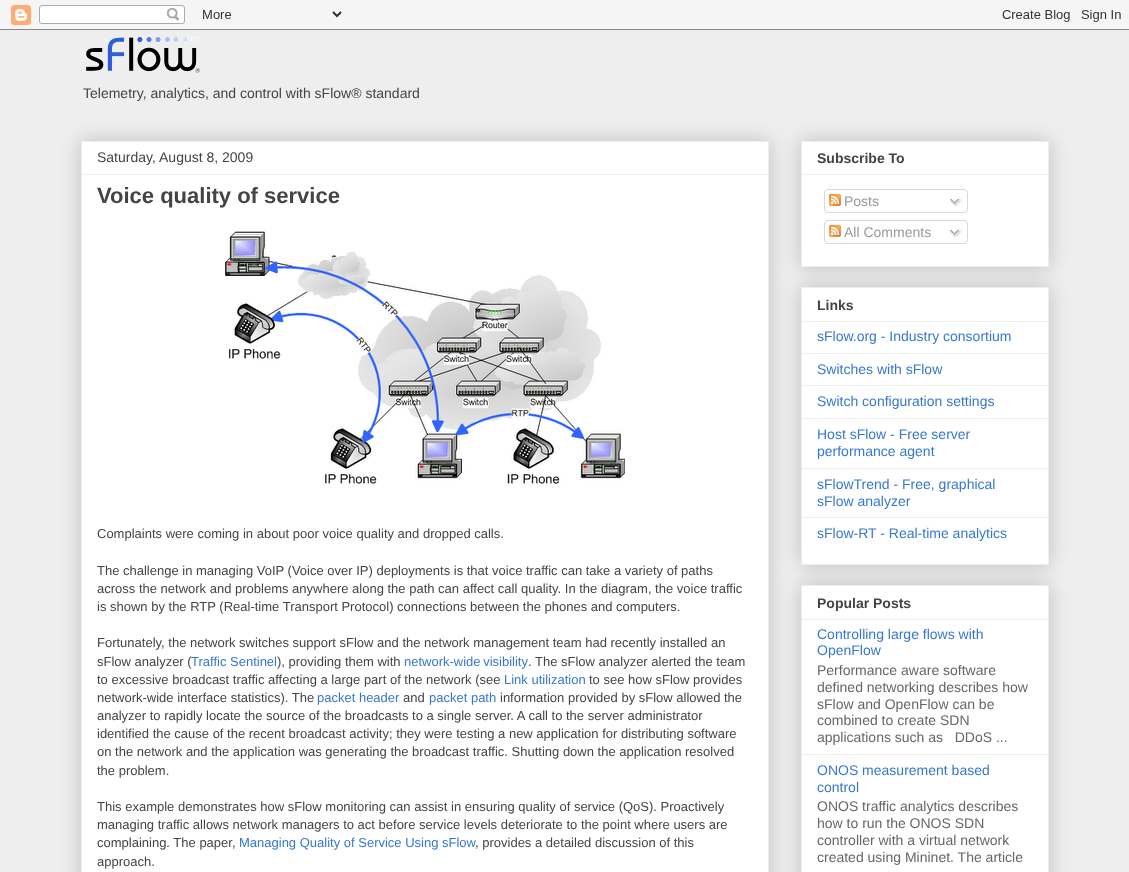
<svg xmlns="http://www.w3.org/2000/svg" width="1129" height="872">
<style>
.a{font:14px Liberation Sans;fill:#444}
.b{font:bold 22px Liberation Sans;fill:#444}
.c{font:13px Liberation Sans;fill:#444}
.d{font:13px Liberation Sans;fill:#3778cd}
.e{font:bold 14px Liberation Sans;fill:#444}
.f{font:14px Liberation Sans;fill:#999}
.g{font:14px Liberation Sans;fill:#3778cd}
.h{font:14px Liberation Sans;fill:#666}
</style>
<rect width="100%" height="100%" fill="#eee"/>
<image href="1.png" x="0" y="0" width="1129" height="30"/>
<image href="2.png" x="86" y="37" width="114" height="36"/>
<path fill="#00000033" filter="blur(10px)" d="M81 141h688v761H81z"/>
<path fill="#fff" stroke="#eee" d="M81.5 141.5h687v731H81.5z"/>
<path fill="#eee" d="M82 174h686v1H82z"/>
<image href="3.png" x="225" y="231" width="400" height="255"/>
<path fill="#00000033" filter="blur(10px)" d="M801 141h248v126H801z"/>
<path fill="#fff" stroke="#eee" d="M801.5 141.5h247v125H801.5z"/>
<path fill="#eee" d="M802 174h246v1H802z"/>
<image href="4.png" x="824" y="189" width="144" height="21"/>
<image href="5.png" x="829" y="194" width="12" height="12"/>
<image href="6.png" x="949" y="198" width="13" height="9"/>
<image href="7.png" x="824" y="210" width="144" height="3"/>
<image href="4.png" x="824" y="220" width="144" height="21"/>
<image href="5.png" x="829" y="225" width="12" height="12"/>
<image href="6.png" x="949" y="229" width="13" height="9"/>
<image href="7.png" x="824" y="241" width="144" height="3"/>
<path fill="#00000033" filter="blur(10px)" d="M801 287h248v278H801z"/>
<path fill="#fff" stroke="#eee" d="M801.5 287.5h247v277H801.5z"/>
<path fill="#eee" d="M802 321h246v1H802z"/>
<path fill="#eee" d="M802 353h246v1H802z"/>
<path fill="#eee" d="M802 385h246v1H802z"/>
<path fill="#eee" d="M802 418h246v1H802z"/>
<path fill="#eee" d="M802 468h246v1H802z"/>
<path fill="#eee" d="M802 517h246v1H802z"/>
<path fill="#00000033" filter="blur(10px)" d="M801 585h248v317H801z"/>
<path fill="#fff" stroke="#eee" d="M801.5 585.5h247v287H801.5z"/>
<path fill="#eee" d="M802 619h246v1H802z"/>
<path fill="#eee" d="M802 754h246v1H802z"/>
<text class="a" x="83" y="98">Telemetry, analytics, and control with sFlow® standard</text>
<text class="a" x="97" y="162">Saturday, August 8, 2009</text>
<text class="b" x="97" y="203">Voice quality of service</text>
<text class="c" x="97" y="538">Complaints were coming in about poor voice quality and dropped calls.</text>
<text class="c" x="97" y="575">The challenge in managing VoIP (Voice over IP) deployments is that voice traffic can take a variety of paths</text>
<text class="c" x="97" y="593">across the network and problems anywhere along the path can affect call quality. In the diagram, the voice traffic</text>
<text class="c" x="97" y="611">is shown by the RTP (Real-time Transport Protocol) connections between the phones and computers.</text>
<text class="c" x="97" y="647">Fortunately, the network switches support sFlow and the network management team had recently installed an</text>
<text class="c" x="97" y="666">sFlow analyzer (</text>
<text class="d" x="191" y="666">Traffic Sentinel</text>
<text class="c" x="277" y="666">), providing them with</text>
<text class="d" x="404" y="666" word-spacing="-1">network-wide visibility</text>
<text class="c" x="528" y="666">. The sFlow analyzer alerted the team</text>
<text class="c" x="97" y="684">to excessive broadcast traffic affecting a large part of the network (see</text>
<text class="d" x="504" y="684">Link utilization</text>
<text class="c" x="589" y="684">to see how sFlow provides</text>
<text class="c" x="97" y="702">network-wide interface statistics). The</text>
<text class="d" x="317" y="702">packet header</text>
<text class="c" x="403" y="702">and</text>
<text class="d" x="429" y="702">packet path</text>
<text class="c" x="500" y="702">information provided by sFlow allowed the</text>
<text class="c" x="97" y="720">analyzer to rapidly locate the source of the broadcasts to a single server. A call to the server administrator</text>
<text class="c" x="97" y="738">identified the cause of the recent broadcast activity; they were testing a new application for distributing software</text>
<text class="c" x="97" y="756">on the network and the application was generating the broadcast traffic. Shutting down the application resolved</text>
<text class="c" x="97" y="775">the problem.</text>
<text class="c" x="97" y="811">This example demonstrates how sFlow monitoring can assist in ensuring quality of service (QoS). Proactively</text>
<text class="c" x="97" y="829">managing traffic allows network managers to act before service levels deteriorate to the point where users are</text>
<text class="c" x="97" y="847">complaining. The paper,</text>
<text class="d" x="239" y="847">Managing Quality of Service Using sFlow</text>
<text class="c" x="475" y="847">, provides a detailed discussion of this</text>
<text class="c" x="97" y="866">approach.</text>
<text class="e" x="817" y="163">Subscribe To</text>
<text class="f" x="844" y="206">Posts</text>
<text class="f" x="844" y="237">All Comments</text>
<text class="e" x="817" y="310">Links</text>
<text class="g" x="817" y="341">sFlow.org - Industry consortium</text>
<text class="g" x="817" y="374">Switches with sFlow</text>
<text class="g" x="817" y="406">Switch configuration settings</text>
<text class="g" x="817" y="439">Host sFlow - Free server</text>
<text class="g" x="817" y="456">performance agent</text>
<text class="g" x="817" y="489">sFlowTrend - Free, graphical</text>
<text class="g" x="817" y="506">sFlow analyzer</text>
<text class="g" x="817" y="538">sFlow-RT - Real-time analytics</text>
<text class="e" x="817" y="608">Popular Posts</text>
<text class="g" x="817" y="639">Controlling large flows with</text>
<text class="g" x="817" y="655">OpenFlow</text>
<text class="h" x="817" y="675">Performance aware software</text>
<text class="h" x="817" y="692">defined networking describes how</text>
<text class="h" x="817" y="709">sFlow and OpenFlow can be</text>
<text class="h" x="817" y="725">combined to create SDN</text>
<text class="h" xml:space="preserve" x="817" y="742">applications such as   DDoS ...</text>
<text class="g" x="817" y="775">ONOS measurement based</text>
<text class="g" x="817" y="792">control</text>
<text class="h" x="817" y="811">ONOS traffic analytics describes</text>
<text class="h" x="817" y="828">how to run the ONOS SDN</text>
<text class="h" x="817" y="845">controller with a virtual network</text>
<text class="h" x="817" y="862">created using Mininet. The article</text>
</svg>
